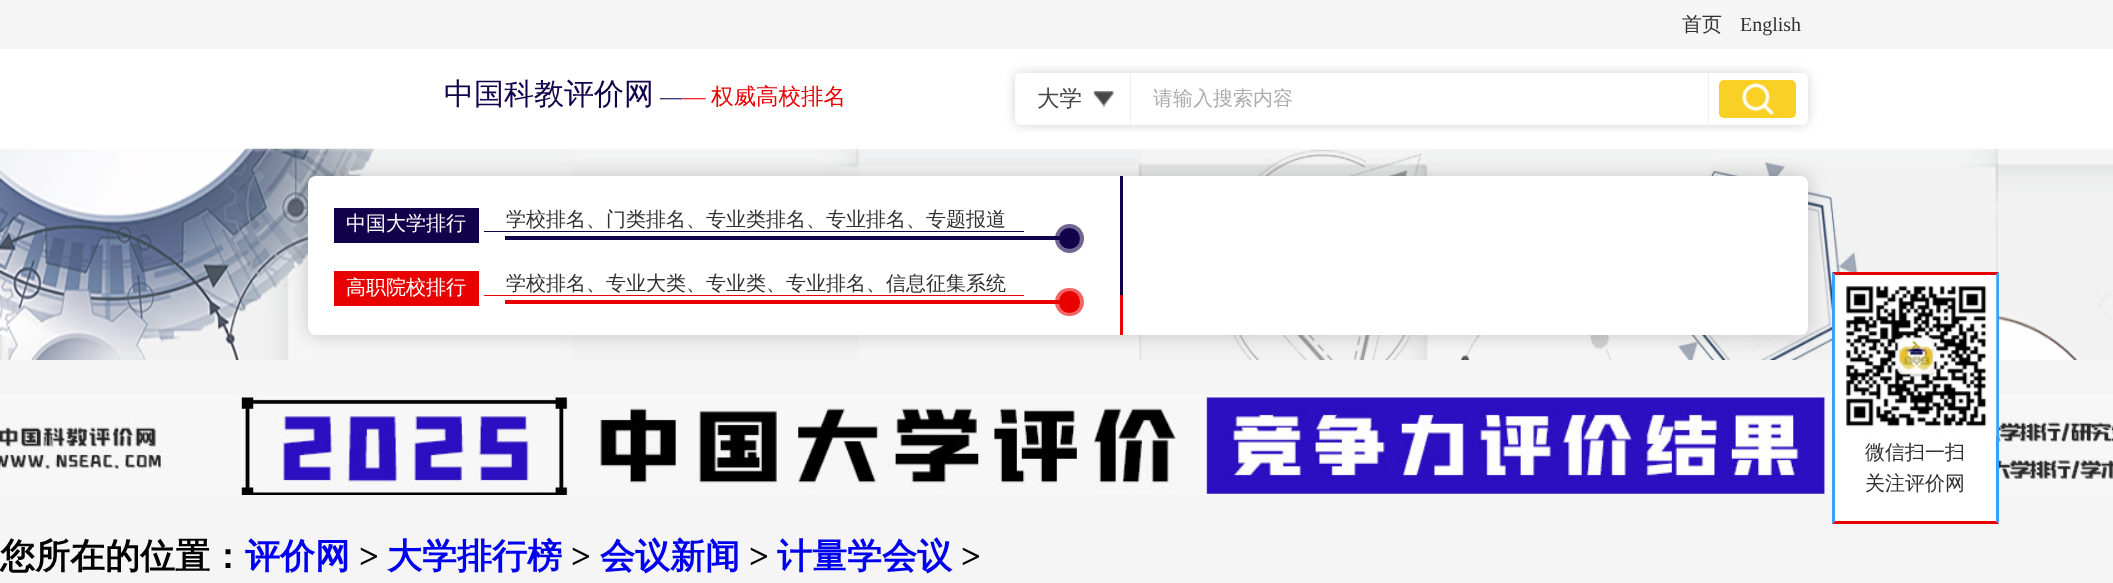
<svg xmlns="http://www.w3.org/2000/svg" width="2113" height="583">
<style>
.a{font:500 20px WenQuanYi Zen Hei;fill:#313131}
.b{font:20px Liberation Serif;fill:#313131}
.c{font:500 30px WenQuanYi Zen Hei;fill:#11014a}
.d{font:22.5px Liberation Serif;fill:#11014a}
.e{font:22.5px Liberation Serif;fill:#e90000}
.f{font:500 22.5px WenQuanYi Zen Hei;fill:#e90000}
.g{font:500 22.5px WenQuanYi Zen Hei;fill:#474747}
.h{font:500 20px WenQuanYi Zen Hei;fill:#acacac}
.i{font:500 20px WenQuanYi Zen Hei;fill:#fff}
.j{font:bold 35px WenQuanYi Zen Hei;fill:#000}
.k{font:bold 35px WenQuanYi Zen Hei;fill:#00e}
.l{font:bold 35px Liberation Serif;fill:#000}
</style>
<defs>
<clipPath id="clip1"><path d="M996 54h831v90h-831zm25 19h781c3.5 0 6 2.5 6 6v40c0 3.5-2.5 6-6 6h-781c-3.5 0-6-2.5-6-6v-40c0-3.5 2.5-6 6-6z" clip-rule="evenodd"/></clipPath>
</defs>
<rect width="100%" height="100%" fill="#f5f5f5"/>
<path fill="#fff" d="M0 49h2113v100H0z"/>
<g clip-path="url(#clip1)">
<rect fill="#8585855c" filter="blur(6px)" x="1015" y="73" width="793" height="52" rx="6"/>
</g>
<image href="1.png" x="1093" y="91" width="21" height="17"/>
<path fill="#efefef" d="M1708 73h1v52H1708z"/>
<path fill="#efefef" d="M1130 73h1v52H1130z"/>
<rect fill="#f9d026" x="1719" y="80" width="77" height="38" rx="5"/>
<image href="2.png" x="1742" y="83" width="32" height="32"/>
<image href="3.png" x="0" y="148" width="2113" height="212"/>
<rect fill="#00000033" filter="blur(9.5px)" x="308" y="176" width="1500" height="159" rx="8"/>
<rect fill="#fff" x="308" y="176" width="1500" height="159" rx="8"/>
<path fill="#12024b" d="M334 208h145v35H334z"/>
<path fill="#12024b" d="M505 236h555v4H505z"/>
<circle fill="#12024b99" cx="1069.5" cy="238.5" r="14.5"/>
<circle fill="#12024b" cx="1069.5" cy="238.5" r="10.5"/>
<path fill="#12024b" d="M484 231h540v1H484z"/>
<path fill="#e90000" d="M334 271h145v35H334z"/>
<path fill="#e90000" d="M505 300h555v4H505z"/>
<rect fill="#e9000099" x="1055" y="288" width="29" height="28" rx="14"/>
<rect fill="#e90000" x="1059" y="291" width="21" height="22" rx="10.5"/>
<path fill="#e90000" d="M484 295h540v1H484z"/>
<path fill="#12024b" d="M1120 176h3v119H1120z"/>
<path fill="#e90000" d="M1120 295h3v40H1120z"/>
<image href="5.png" x="0" y="395" width="2113" height="100"/>
<path fill="#fff" d="M1833 273h166v251H1833z"/>
<path fill="#e90000" d="M1832 272h167l-3 3h-161z"/>
<path fill="#35a2ff" d="M1999 272v252l-3-3v-246z"/>
<path fill="#e90000" d="M1999 524h-167l3-3h161z"/>
<path fill="#35a2ff" d="M1832 524v-252l3 3v246z"/>
<image href="4.png" x="1834" y="275" width="163" height="162"/>
<text class="a" x="1682" y="31">首页</text>
<text class="b" x="1740" y="31">English</text>
<text class="c" x="444" y="104">中国科教评价网</text>
<text class="d" x="660" y="104">—</text>
<text class="e" x="683" y="104">—</text>
<text class="f" x="711" y="104">权威高校排名</text>
<text class="g" x="1037" y="106">大学</text>
<text class="h" x="1153" y="105">请输入搜索内容</text>
<text class="i" x="346" y="230">中国大学排行</text>
<text class="a" x="506" y="226">学校排名、门类排名、专业类排名、专业排名、专题报道</text>
<text class="i" x="346" y="294">高职院校排行</text>
<text class="a" x="506" y="290">学校排名、专业大类、专业类、专业排名、信息征集系统</text>
<text class="a" x="1865" y="459">微信扫一扫</text>
<text class="a" x="1865" y="490">关注评价网</text>
<text class="j" x="0" y="568">您所在的位置：</text>
<text class="k" x="245" y="568">评价网</text>
<text class="l" x="359" y="568">&gt;</text>
<text class="k" x="387" y="568">大学排行榜</text>
<text class="l" x="571" y="568">&gt;</text>
<text class="k" x="600" y="568">会议新闻</text>
<text class="l" x="749" y="568">&gt;</text>
<text class="k" x="777" y="568">计量学会议</text>
<text class="l" x="961" y="568">&gt;</text>
</svg>
